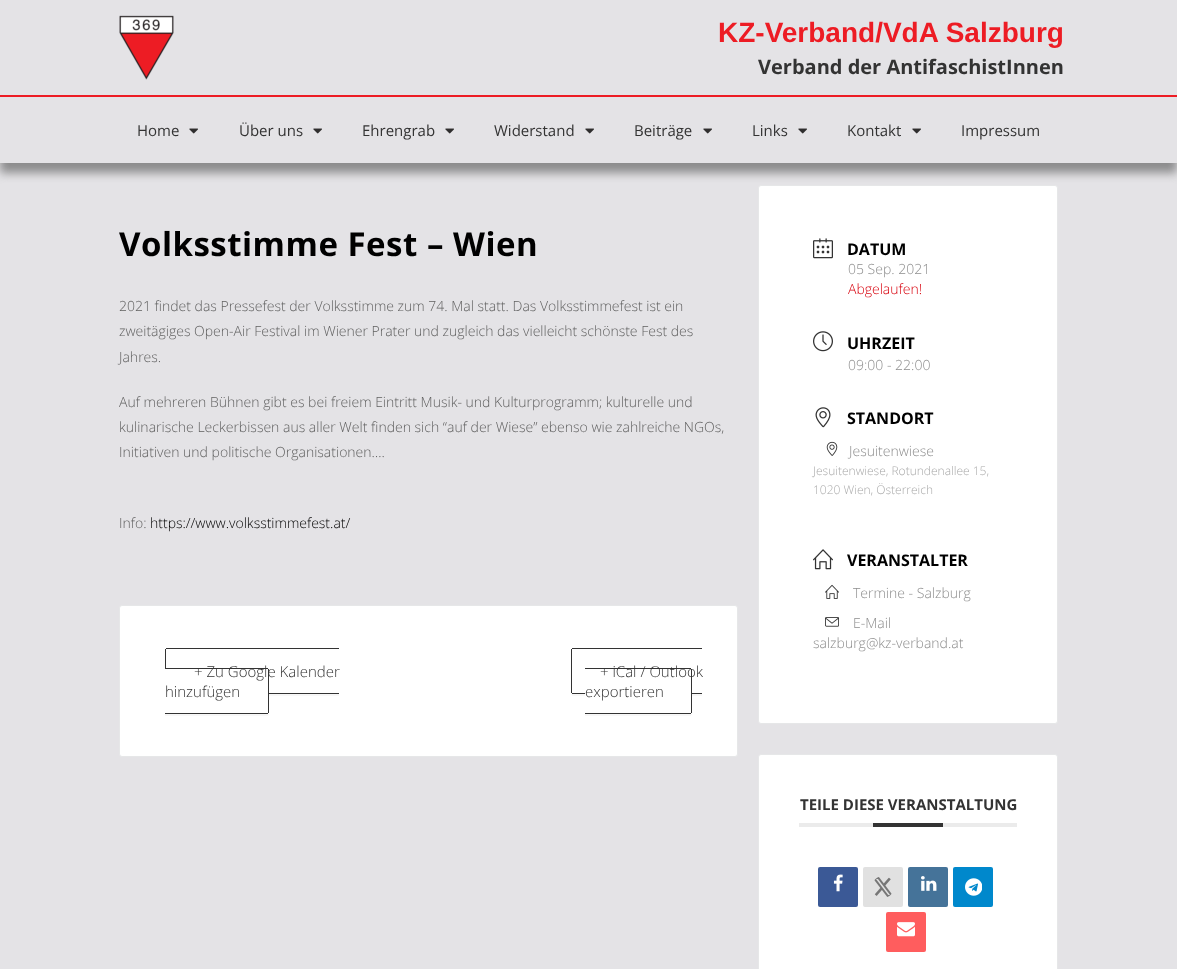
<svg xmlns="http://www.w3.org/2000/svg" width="1177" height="969">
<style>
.a{font:bold 28px Liberation Sans;fill:#ed1c24}
.b{font:bold 20px Open Sans;fill:#333}
.c{font:15px Open Sans;fill:#333}
.d{font:bold 33px Open Sans;letter-spacing:0.5px;fill:#000}
.e{font:300 14px Open Sans;fill:#616161}
.f{font:300 14px Open Sans;fill:#000}
.g{font:300 15px Open Sans;fill:#333}
.h{font:bold 16px Open Sans;fill:#000}
.i{font:300 14px Open Sans;fill:#8d8d8d}
.j{font:300 14px Open Sans;fill:#d8000c}
.k{font:300 12px Open Sans;fill:#a9a9a9}
.l{font:bold 15px Open Sans;fill:#333}
</style>
<rect width="100%" height="100%" fill="#e4e3e6"/>
<image href="1.png" x="119" y="15" width="55" height="65"/>
<path fill="#8c8c8d" filter="blur(5px)" d="M0 105h1177v68H0z"/>
<path fill="#ed1c24" d="M0 95h1177v2H0z"/>
<path fill="#e4e3e6" d="M0 97h1177v66H0z"/>
<image href="2.png" x="189" y="128" width="9" height="6"/>
<image href="2.png" x="313" y="128" width="9" height="6"/>
<image href="2.png" x="445" y="128" width="9" height="6"/>
<image href="2.png" x="585" y="128" width="9" height="6"/>
<image href="2.png" x="703" y="128" width="9" height="6"/>
<image href="2.png" x="798" y="128" width="9" height="6"/>
<image href="2.png" x="912" y="128" width="9" height="6"/>
<rect fill="#fff" stroke="#e6e7e8" x="119.5" y="605.5" width="618" height="151" rx="2.5"/>
<path fill="#333" d="M166 648h173v1H166z"/>
<path fill="#333" d="M165 649h1v19H165z"/>
<path fill="#f7f7f7" d="M165 692c0 2 0 4 2 4h172v-2h-172c-1 0-2-1-2-2z"/>
<path fill="#f7f7f7" d="M165 714v2h102c1 0 2-1 2-2v-2c0 1-1 2-2 2z"/>
<path fill="#fff" d="M165 668h102c1 0 2 1 2 2v42c0 1-1 2-2 2h-102z"/>
<path fill="#333" d="M165 668h103v1H165z"/>
<path fill="#333" d="M269 693h70v1H269z"/>
<path fill="#333" d="M268 669h1v44H268z"/>
<path fill="#333" d="M165 713h103v1H165z"/>
<path fill="#333" d="M572 648h130v1H572z"/>
<path fill="#f7f7f7" d="M571 692v2c0 1 1 2 2 2h129v-2h-130z"/>
<path fill="#333" d="M571 649h1v44H571z"/>
<path fill="#333" d="M572 693h130v1H572z"/>
<path fill="#f7f7f7" d="M585 714v2h105c1 0 2-1 2-2v-2c0 1-1 2-2 2z"/>
<path fill="#fff" d="M585 668h105c1 0 2 1 2 2v42c0 1-1 2-2 2h-105z"/>
<path fill="#333" d="M585 668h106v1H585z"/>
<path fill="#333" d="M691 669h1v44H691z"/>
<path fill="#333" d="M585 713h106v1H585z"/>
<rect fill="#fff" stroke="#e6e7e8" x="758.5" y="185.5" width="299" height="538" rx="2.5"/>
<image href="3.png" x="813" y="238" width="20" height="21"/>
<image href="4.png" x="813" y="331" width="20" height="21"/>
<image href="5.png" x="815" y="407" width="16" height="21"/>
<image href="6.png" x="826" y="441" width="12" height="15"/>
<image href="7.png" x="813" y="549" width="20" height="21"/>
<image href="8.png" x="825" y="584" width="14" height="15"/>
<image href="9.png" x="825" y="617" width="14" height="10"/>
<rect fill="#fff" stroke="#e6e7e8" x="758.5" y="754.5" width="299" height="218" rx="2.5"/>
<path fill="#ebebeb" d="M799 823h218v4H799z"/>
<path fill="#333" d="M873 823h70v4H873z"/>
<rect fill="#3b5996" x="818" y="867" width="40" height="40" rx="2"/>
<image href="10.png" x="833" y="874" width="10" height="18"/>
<rect fill="#e1e1e1" x="863" y="867" width="40" height="40" rx="2"/>
<image href="11.png" x="874" y="877" width="18" height="20"/>
<rect fill="#457399" x="908" y="867" width="40" height="40" rx="2"/>
<image href="12.png" x="921" y="876" width="16" height="15"/>
<rect fill="#08c" x="953" y="867" width="40" height="40" rx="2"/>
<image href="13.png" x="965" y="878" width="17" height="18"/>
<rect fill="#ff5d5e" x="886" y="912" width="40" height="40" rx="2"/>
<image href="14.png" x="897" y="922" width="18" height="15"/>
<text class="a" x="718" y="42">KZ-Verband/VdA Salzburg</text>
<text class="b" x="758" y="74">Verband der AntifaschistInnen</text>
<text class="c" x="137" y="136">Home</text>
<text class="c" x="239" y="136">Über uns</text>
<text class="c" x="362" y="136">Ehrengrab</text>
<text class="c" x="494" y="136">Widerstand</text>
<text class="c" x="634" y="136">Beiträge</text>
<text class="c" x="752" y="136">Links</text>
<text class="c" x="847" y="136">Kontakt</text>
<text class="c" x="961" y="136">Impressum</text>
<text class="d" x="119" y="256">Volksstimme Fest – Wien</text>
<text class="e" x="119" y="311">2021 findet das Pressefest der Volksstimme zum 74. Mal statt. Das Volksstimmefest ist ein</text>
<text class="e" x="119" y="336">zweitägiges Open-Air Festival im Wiener Prater und zugleich das vielleicht schönste Fest des</text>
<text class="e" x="119" y="362">Jahres.</text>
<text class="e" x="119" y="407">Auf mehreren Bühnen gibt es bei freiem Eintritt Musik- und Kulturprogramm; kulturelle und</text>
<text class="e" x="119" y="432">kulinarische Leckerbissen aus aller Welt finden sich “auf der Wiese” ebenso wie zahlreiche NGOs,</text>
<text class="e" x="119" y="457">Initiativen und politische Organisationen….</text>
<text class="e" x="119" y="528">Info:</text>
<text class="f" x="150" y="528">https://www.volksstimmefest.at/</text>
<text class="g" x="194" y="677">+ Zu Google Kalender</text>
<text class="g" x="165" y="697">hinzufügen</text>
<text class="g" x="600" y="677">+ iCal / Outlook</text>
<text class="g" x="585" y="697">exportieren</text>
<text class="h" x="847" y="255">DATUM</text>
<text class="i" x="848" y="274">05 Sep. 2021</text>
<text class="j" x="848" y="294">Abgelaufen!</text>
<text class="h" x="847" y="349">UHRZEIT</text>
<text class="i" x="848" y="370">09:00 - 22:00</text>
<text class="h" x="847" y="424">STANDORT</text>
<text class="i" x="849" y="456">Jesuitenwiese</text>
<text class="k" x="813" y="475">Jesuitenwiese, Rotundenallee 15,</text>
<text class="k" x="813" y="494">1020 Wien, Österreich</text>
<text class="h" x="847" y="566">VERANSTALTER</text>
<text class="i" x="853" y="598">Termine - Salzburg</text>
<text class="i" x="853" y="628">E-Mail</text>
<text class="i" x="813" y="648">salzburg@kz-verband.at</text>
<text class="l" x="800" y="810">TEILE DIESE VERANSTALTUNG</text>
</svg>
